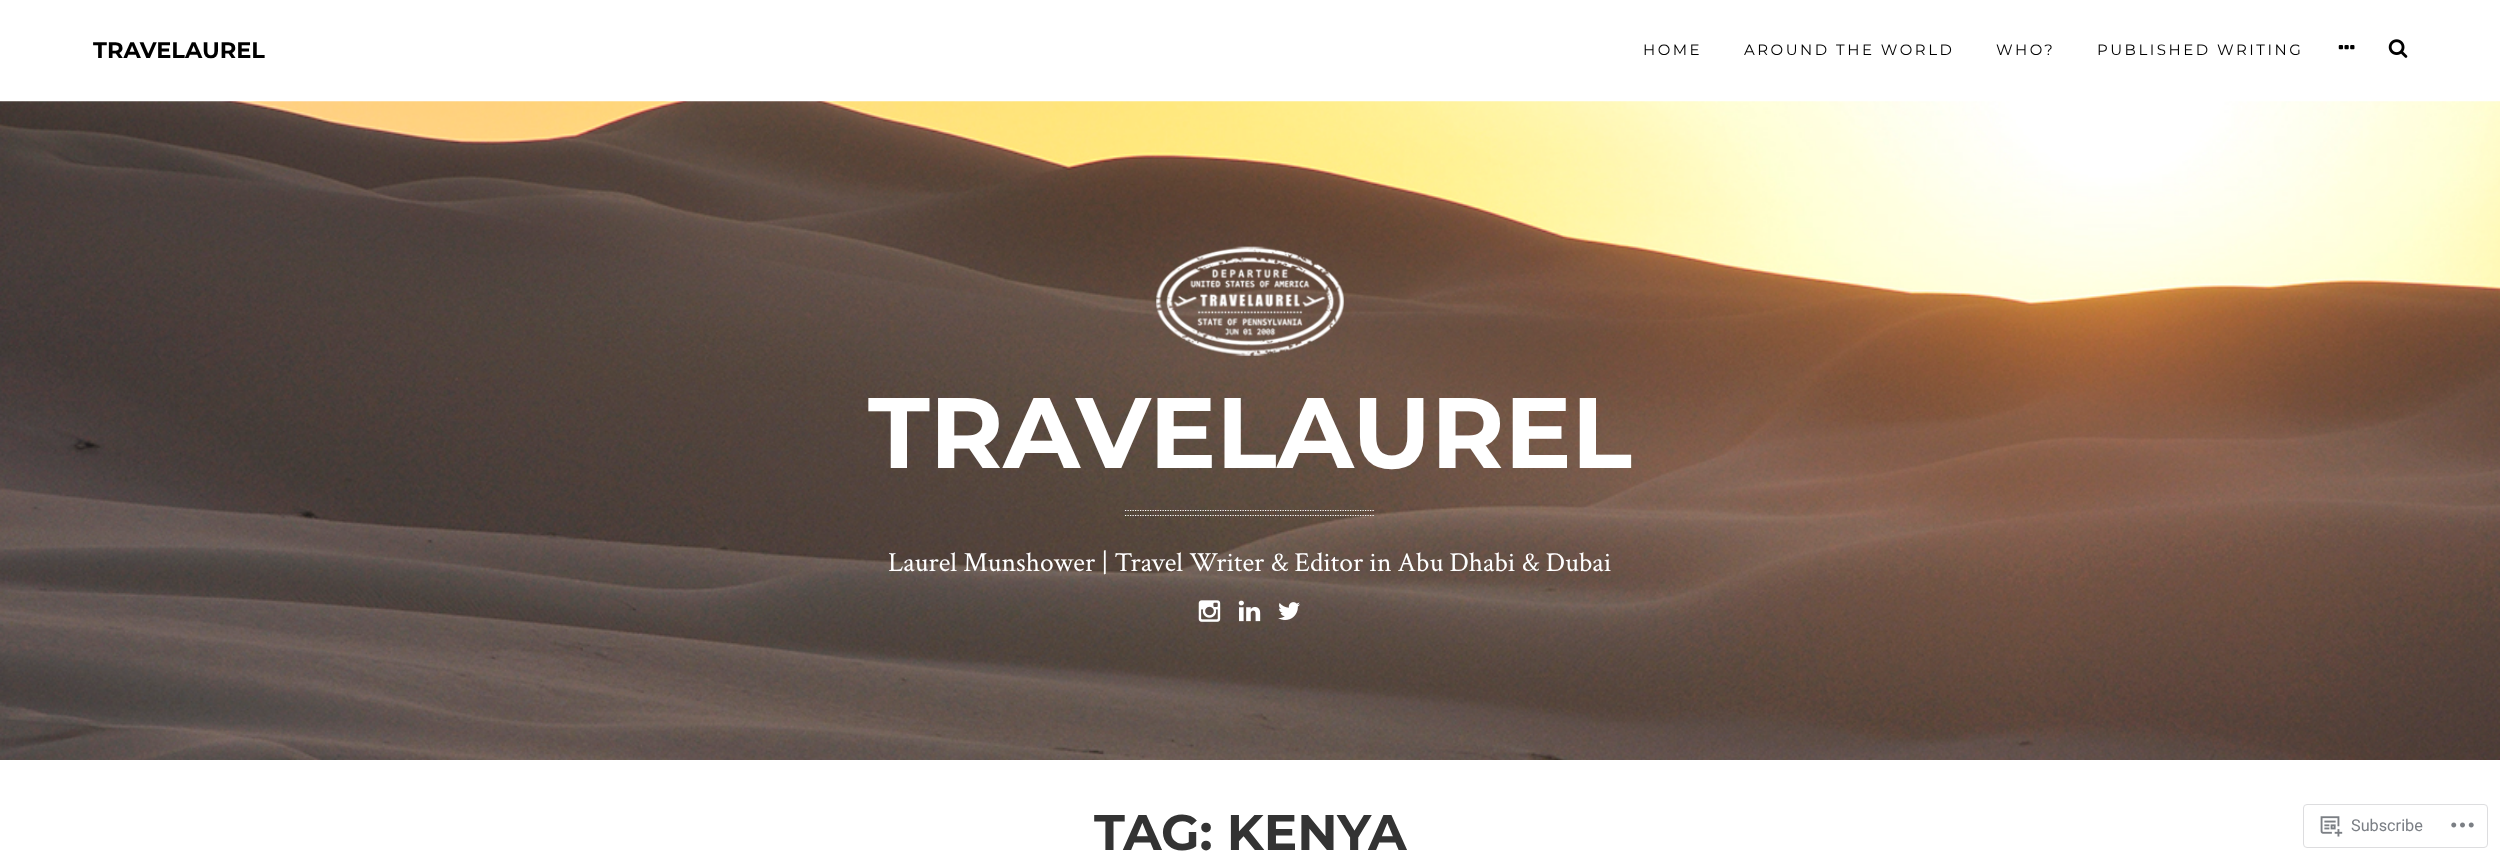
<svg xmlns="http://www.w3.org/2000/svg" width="2500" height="860">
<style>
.a{font:bold 22.5px Montserrat;fill:#000}
.b{font:15px Montserrat;letter-spacing:2.5px;fill:#000}
.c{font:bold 100px Montserrat;fill:#fff}
.d{font:27.5px Crimson Text;fill:#fff}
.e{font:bold 50px Montserrat;fill:#333}
.f{font:16.25px Roboto;fill:#7b7f85}
</style>
<rect width="100%" height="100%" fill="#fff"/>
<image href="1.png" x="2338" y="45" width="17" height="5"/>
<image href="2.png" x="2388" y="39" width="20" height="19"/>
<image href="3.png" x="0" y="101" width="2500" height="659"/>
<image href="4.png" x="1156" y="246" width="188" height="110"/>
<path fill="none" stroke="#fff" stroke-width="1.2" stroke-dasharray="1.25 1.25" d="M1125 510.5h250"/>
<path fill="none" stroke="#fff" stroke-width="1.2" stroke-dasharray="1.25 1.25" d="M1125 515.5h250"/>
<image href="5.png" x="1198" y="600" width="23" height="22"/>
<image href="6.png" x="1238" y="600" width="23" height="22"/>
<image href="7.png" x="1278" y="602" width="22" height="18"/>
<rect fill="none" stroke="#dddddf" x="2303.5" y="804.5" width="184" height="43" rx="3.5"/>
<image href="8.png" x="2320" y="816" width="23" height="21"/>
<image href="9.png" x="2451" y="822" width="23" height="6"/>
<text class="a" x="93" y="58">TRAVELAUREL</text>
<text class="b" x="1643" y="55">HOME</text>
<text class="b" x="1744" y="55">AROUND THE WORLD</text>
<text class="b" x="1996" y="55">WHO?</text>
<text class="b" x="2097" y="55">PUBLISHED WRITING</text>
<text class="c" x="868" y="468">TRAVELAUREL</text>
<text class="d" x="888" y="571">Laurel Munshower | Travel Writer &amp; Editor in Abu Dhabi &amp; Dubai</text>
<text class="e" x="1094" y="850">TAG: KENYA</text>
<text class="f" x="2351" y="831">Subscribe</text>
</svg>
